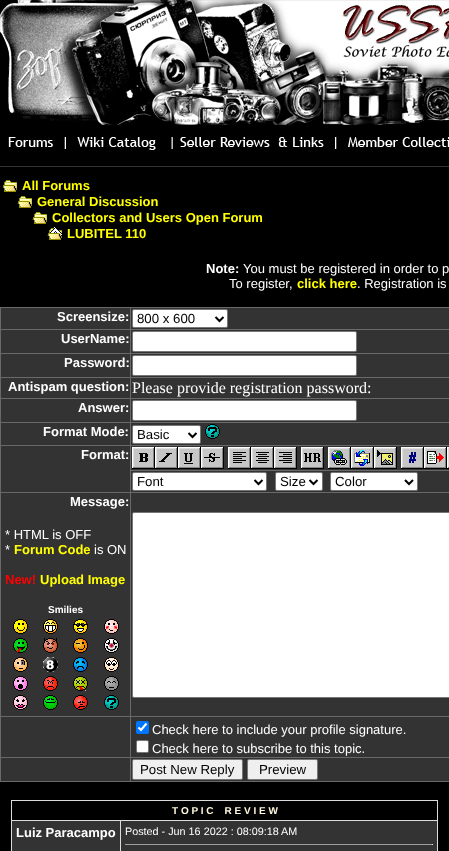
<svg xmlns="http://www.w3.org/2000/svg" width="449" height="851">
<style>
.a{font:bold 13px Liberation Sans;fill:#ff0}
.b{font:bold 13px Liberation Sans;fill:#fff}
.c{font:13px Liberation Sans;fill:#fff}
.d{font:13.25px Liberation Sans;fill:#000}
.e{font:16px Liberation Serif;fill:#fff}
.f{font:bold 13px Liberation Sans;fill:#f00}
.g{font:bold 10px Liberation Sans;fill:#fff}
.h{font:bold 10px Liberation Sans;fill:#fff8dc}
.i{font:10.8px Liberation Sans;fill:#fff}
</style>
<rect width="100%" height="100%" fill="#000"/>
<image href="1.png" x="0" y="0" width="449" height="125"/>
<image href="2.png" x="8" y="137" width="57" height="12"/>
<image href="3.png" x="65" y="137" width="108" height="13"/>
<image href="4.png" x="180" y="137" width="144" height="10"/>
<image href="5.png" x="335" y="137" width="114" height="12"/>
<path fill="#333" d="M0 166h449v1H0z"/>
<image href="6.png" x="3" y="180" width="14" height="12"/>
<image href="6.png" x="18" y="196" width="14" height="12"/>
<path fill="#432600" d="M17 203h1v1H17z"/>
<image href="6.png" x="33" y="212" width="14" height="12"/>
<path fill="#432600" d="M32 219h1v1H32z"/>
<image href="7.png" x="48" y="227" width="14" height="13"/>
<path fill="#432600" d="M47 235h1v1H47z"/>
<path fill="#696969" d="M0 307h449v475H0z"/>
<path fill="#333" d="M1 308h129v21H1z"/>
<path fill="#333" d="M131 308h318v21H131z"/>
<rect fill="#fff" stroke="#767676" x="132.5" y="309.5" width="95" height="18" rx="1.5"/>
<path fill="none" stroke="#000" stroke-width="2" d="M215.5 317l4 4l4-4"/>
<path fill="#333" d="M1 330h129v23H1z"/>
<path fill="#333" d="M131 330h318v23H131z"/>
<rect fill="#fff" stroke="#767676" x="132.5" y="331.5" width="224" height="20" rx="1.5"/>
<path fill="#333" d="M1 354h129v23H1z"/>
<path fill="#333" d="M131 354h318v23H131z"/>
<rect fill="#fff" stroke="#767676" x="132.5" y="355.5" width="224" height="20" rx="1.5"/>
<path fill="#333" d="M1 378h129v20H1z"/>
<path fill="#333" d="M131 378h318v20H131z"/>
<path fill="#333" d="M1 399h129v23H1z"/>
<path fill="#333" d="M131 399h318v23H131z"/>
<rect fill="#fff" stroke="#767676" x="132.5" y="400.5" width="224" height="20" rx="1.5"/>
<path fill="#333" d="M1 423h129v22H1z"/>
<path fill="#333" d="M131 423h318v22H131z"/>
<rect fill="#fff" stroke="#767676" x="132.5" y="425.5" width="68" height="18" rx="1.5"/>
<path fill="none" stroke="#000" stroke-width="2" d="M188.5 433l4 4l4-4"/>
<image href="8.png" x="205" y="424" width="15" height="15"/>
<path fill="#333" d="M1 446h129v46H1z"/>
<path fill="#333" d="M131 446h318v24H131z"/>
<image href="9.png" x="132" y="447" width="23" height="22"/>
<image href="10.png" x="155" y="447" width="23" height="22"/>
<image href="11.png" x="178" y="447" width="23" height="22"/>
<image href="12.png" x="201" y="447" width="23" height="22"/>
<image href="13.png" x="228" y="447" width="23" height="22"/>
<image href="14.png" x="251" y="447" width="23" height="22"/>
<image href="15.png" x="274" y="447" width="23" height="22"/>
<image href="16.png" x="301" y="447" width="23" height="22"/>
<image href="17.png" x="328" y="447" width="23" height="22"/>
<image href="18.png" x="351" y="447" width="23" height="22"/>
<image href="19.png" x="374" y="447" width="23" height="22"/>
<image href="20.png" x="401" y="447" width="23" height="22"/>
<image href="21.png" x="424" y="447" width="23" height="22"/>
<image href="22.png" x="447" y="447" width="2" height="22"/>
<path fill="#333" d="M131 471h318v21H131z"/>
<rect fill="#fff" stroke="#767676" x="132.5" y="472.5" width="134" height="18" rx="1.5"/>
<path fill="none" stroke="#000" stroke-width="2" d="M254.5 480l4 4l4-4"/>
<rect fill="#fff" stroke="#767676" x="275.5" y="472.5" width="47" height="18" rx="1.5"/>
<path fill="none" stroke="#000" stroke-width="2" d="M309.5 480l4 4l4-4"/>
<rect fill="#fff" stroke="#767676" x="330.5" y="472.5" width="87" height="18" rx="1.5"/>
<path fill="none" stroke="#000" stroke-width="2" d="M405 480l4 4l4-4"/>
<path fill="#333" d="M1 493h129v223H1z"/>
<image href="23.png" x="13" y="619" width="15" height="15"/>
<image href="24.png" x="43" y="619" width="15" height="15"/>
<image href="25.png" x="73" y="619" width="15" height="15"/>
<image href="26.png" x="104" y="619" width="15" height="15"/>
<image href="27.png" x="13" y="638" width="15" height="15"/>
<image href="28.png" x="43" y="638" width="15" height="15"/>
<image href="29.png" x="73" y="638" width="15" height="15"/>
<image href="30.png" x="104" y="638" width="15" height="15"/>
<image href="31.png" x="13" y="657" width="15" height="15"/>
<image href="32.png" x="43" y="657" width="15" height="15"/>
<image href="33.png" x="73" y="657" width="15" height="15"/>
<image href="34.png" x="104" y="657" width="15" height="15"/>
<image href="35.png" x="13" y="676" width="15" height="15"/>
<image href="36.png" x="43" y="676" width="15" height="15"/>
<image href="37.png" x="73" y="676" width="15" height="15"/>
<image href="38.png" x="104" y="676" width="15" height="15"/>
<image href="39.png" x="13" y="695" width="15" height="15"/>
<image href="40.png" x="43" y="695" width="15" height="15"/>
<image href="41.png" x="73" y="695" width="15" height="15"/>
<image href="8.png" x="104" y="695" width="15" height="15"/>
<path fill="#333" d="M131 493h318v223H131z"/>
<rect fill="#fff" stroke="#767676" x="132.5" y="512.5" width="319" height="185" rx="1.5"/>
<path fill="#333" d="M1 717h129v40H1z"/>
<path fill="#333" d="M131 717h318v40H131z"/>
<rect fill="#0075ff" x="136" y="721" width="13" height="13" rx="2"/>
<path fill="none" stroke="#fff" stroke-width="2.1" d="M138.5 727.5l2.5 2.5l5.5-6.5"/>
<rect fill="#fff" stroke="#767676" x="136.5" y="740.5" width="12" height="12" rx="1.5"/>
<path fill="#333" d="M1 758h129v23H1z"/>
<path fill="#333" d="M131 758h318v23H131z"/>
<rect fill="#efefef" stroke="#767676" x="132.5" y="759.5" width="110" height="20" rx="1.5"/>
<rect fill="#efefef" stroke="#767676" x="247.5" y="759.5" width="70" height="20" rx="1.5"/>
<path fill="#dcdcdc" d="M11 800h427v51H11z"/>
<path fill="#000" d="M12 801h425v19H12z"/>
<path fill="#333" d="M12 821h108v30H12z"/>
<path fill="#333" d="M121 821h316v30H121z"/>
<path fill="#9f9f9f" d="M125 844h308v1H125z"/>
<path fill="#eee" d="M432 844h1v1H432z"/>
<text class="a" x="22" y="190">All Forums</text>
<text class="a" x="37" y="206">General Discussion</text>
<text class="a" x="52" y="222">Collectors and Users Open Forum</text>
<text class="a" x="67" y="238">LUBITEL 110</text>
<text class="b" x="206" y="273">Note:</text>
<text class="c" x="243" y="273">You must be registered in order to p</text>
<text class="c" x="229" y="288">To register,</text>
<text class="a" x="297" y="288">click here</text>
<text class="c" x="357" y="288">. Registration is</text>
<text class="b" x="57" y="321">Screensize:</text>
<text class="d" x="137" y="323">800 x 600</text>
<text class="b" x="61" y="343">UserName:</text>
<text class="b" x="64" y="367">Password:</text>
<text class="b" x="8" y="391">Antispam question:</text>
<text class="e" x="132" y="393">Please provide registration password:</text>
<text class="b" x="78" y="412">Answer:</text>
<text class="b" x="43" y="436">Format Mode:</text>
<text class="d" x="137" y="439">Basic</text>
<text class="b" x="81" y="459">Format:</text>
<text class="d" x="137" y="486">Font</text>
<text class="d" x="280" y="486">Size</text>
<text class="d" x="335" y="486">Color</text>
<text class="b" x="70" y="506">Message:</text>
<text class="c" x="5" y="539">* HTML is OFF</text>
<text class="c" x="5" y="554">*</text>
<text class="a" x="14" y="554">Forum Code</text>
<text class="c" x="94" y="554">is ON</text>
<text class="f" x="5" y="584">New!</text>
<text class="a" x="40" y="584">Upload Image</text>
<text class="g" x="48" y="613">Smilies</text>
<text class="c" x="152" y="734">Check here to include your profile signature.</text>
<text class="c" x="152" y="753">Check here to subscribe to this topic.</text>
<text class="d" x="140" y="774">Post New Reply</text>
<text class="d" x="259" y="774">Preview</text>
<text class="h" xml:space="preserve" x="172" y="814">T O P I C    R E V I E W</text>
<text class="b" x="16" y="837">Luiz Paracampo</text>
<text class="i" x="125" y="835">Posted - Jun 16 2022 : 08:09:18 AM</text>
</svg>
